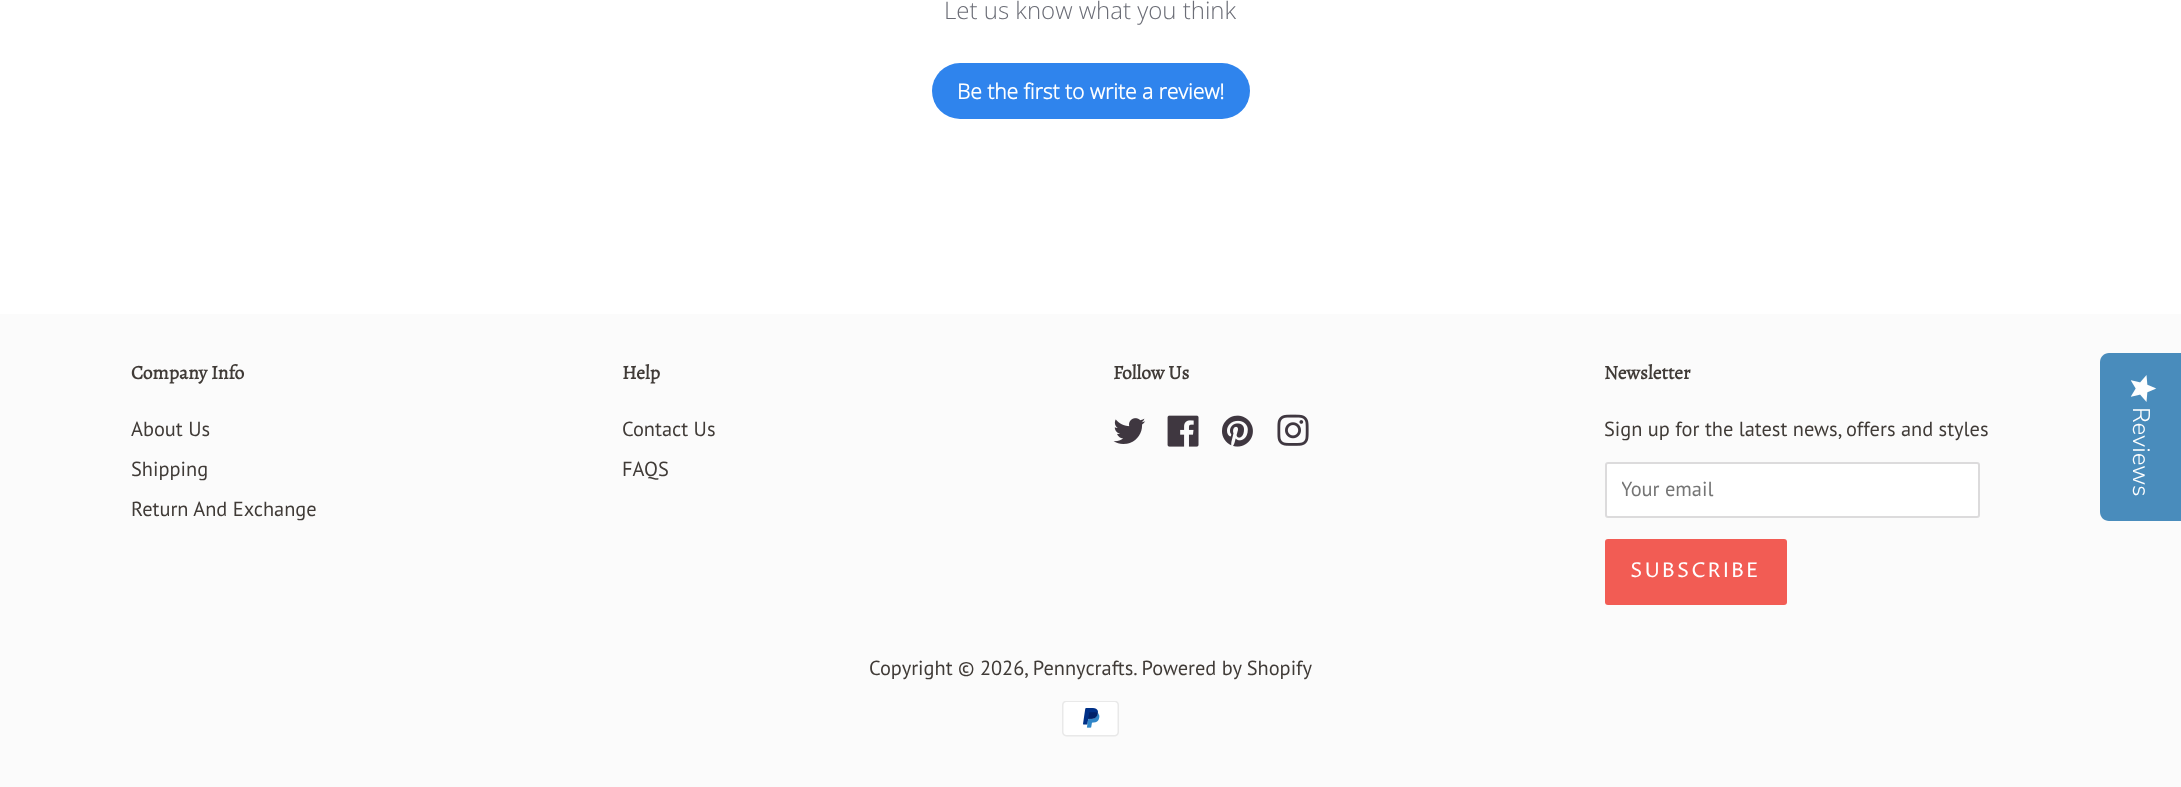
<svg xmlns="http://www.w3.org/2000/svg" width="2181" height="787">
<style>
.a{font:300 24px Open Sans;fill:#6b6d76}
.b{font:bold 21px Open Sans;fill:#fff}
.c{font:bold 19.5px Alegreya;fill:#403b37}
.d{font:20.4px PT Sans;fill:#403b37}
.e{font:20.4px PT Sans;fill:#757575}
.f{font:20.4px Proza Libre;letter-spacing:2px;fill:#fff}
.g{font:300 24px Nunito Sans;fill:#fff}
</style>
<defs>
<clipPath id="clip1"><path d="M1622 476h342v27H1622z"/></clipPath>
</defs>
<rect width="100%" height="100%" fill="#fff"/>
<rect fill="#2f84ed" x="932" y="63" width="318" height="56" rx="28"/>
<path fill="#fbfbfb" d="M0 314h2181v473H0z"/>
<image href="1.png" x="1113" y="418" width="33" height="26"/>
<image href="2.png" x="1167" y="415" width="32" height="32"/>
<image href="3.png" x="1222" y="415" width="31" height="32"/>
<image href="4.png" x="1277" y="414" width="32" height="32"/>
<rect fill="#fff" stroke="#dcdbdc" stroke-width="2" x="1606" y="463" width="373" height="54" rx="2"/>
<rect fill="#f25c54" x="1605" y="539" width="182" height="66" rx="3"/>
<image href="5.png" x="1062" y="701" width="57" height="36"/>
<path fill="#498cbc" d="M2181 353v168h-72c-5 0-9-4-9-9v-150c0-5 4-9 9-9z"/>
<image href="6.png" x="2130" y="375" width="27" height="27"/>
<text class="a" x="944" y="19">Let us know what you think</text>
<text class="b" x="957" y="99">Be the first to write a review!</text>
<text class="c" x="131" y="379">Company Info</text>
<text class="d" x="131" y="436">About Us</text>
<text class="d" x="131" y="476">Shipping</text>
<text class="d" x="131" y="516">Return And Exchange</text>
<text class="c" x="622" y="379">Help</text>
<text class="d" x="622" y="436">Contact Us</text>
<text class="d" x="622" y="476">FAQS</text>
<text class="c" x="1113" y="379">Follow Us</text>
<text class="c" x="1604" y="379">Newsletter</text>
<text class="d" x="1604" y="436">Sign up for the latest news, offers and styles</text>
<g clip-path="url(#clip1)">
<text class="e" x="1621" y="496">Your email</text>
</g>
<text class="f" x="1630" y="577">SUBSCRIBE</text>
<text class="d" x="869" y="675">Copyright © 2026, Pennycrafts. Powered by Shopify</text>
<text class="g" x="2133" y="407" transform="rotate(90 2133 407)">Reviews</text>
</svg>
